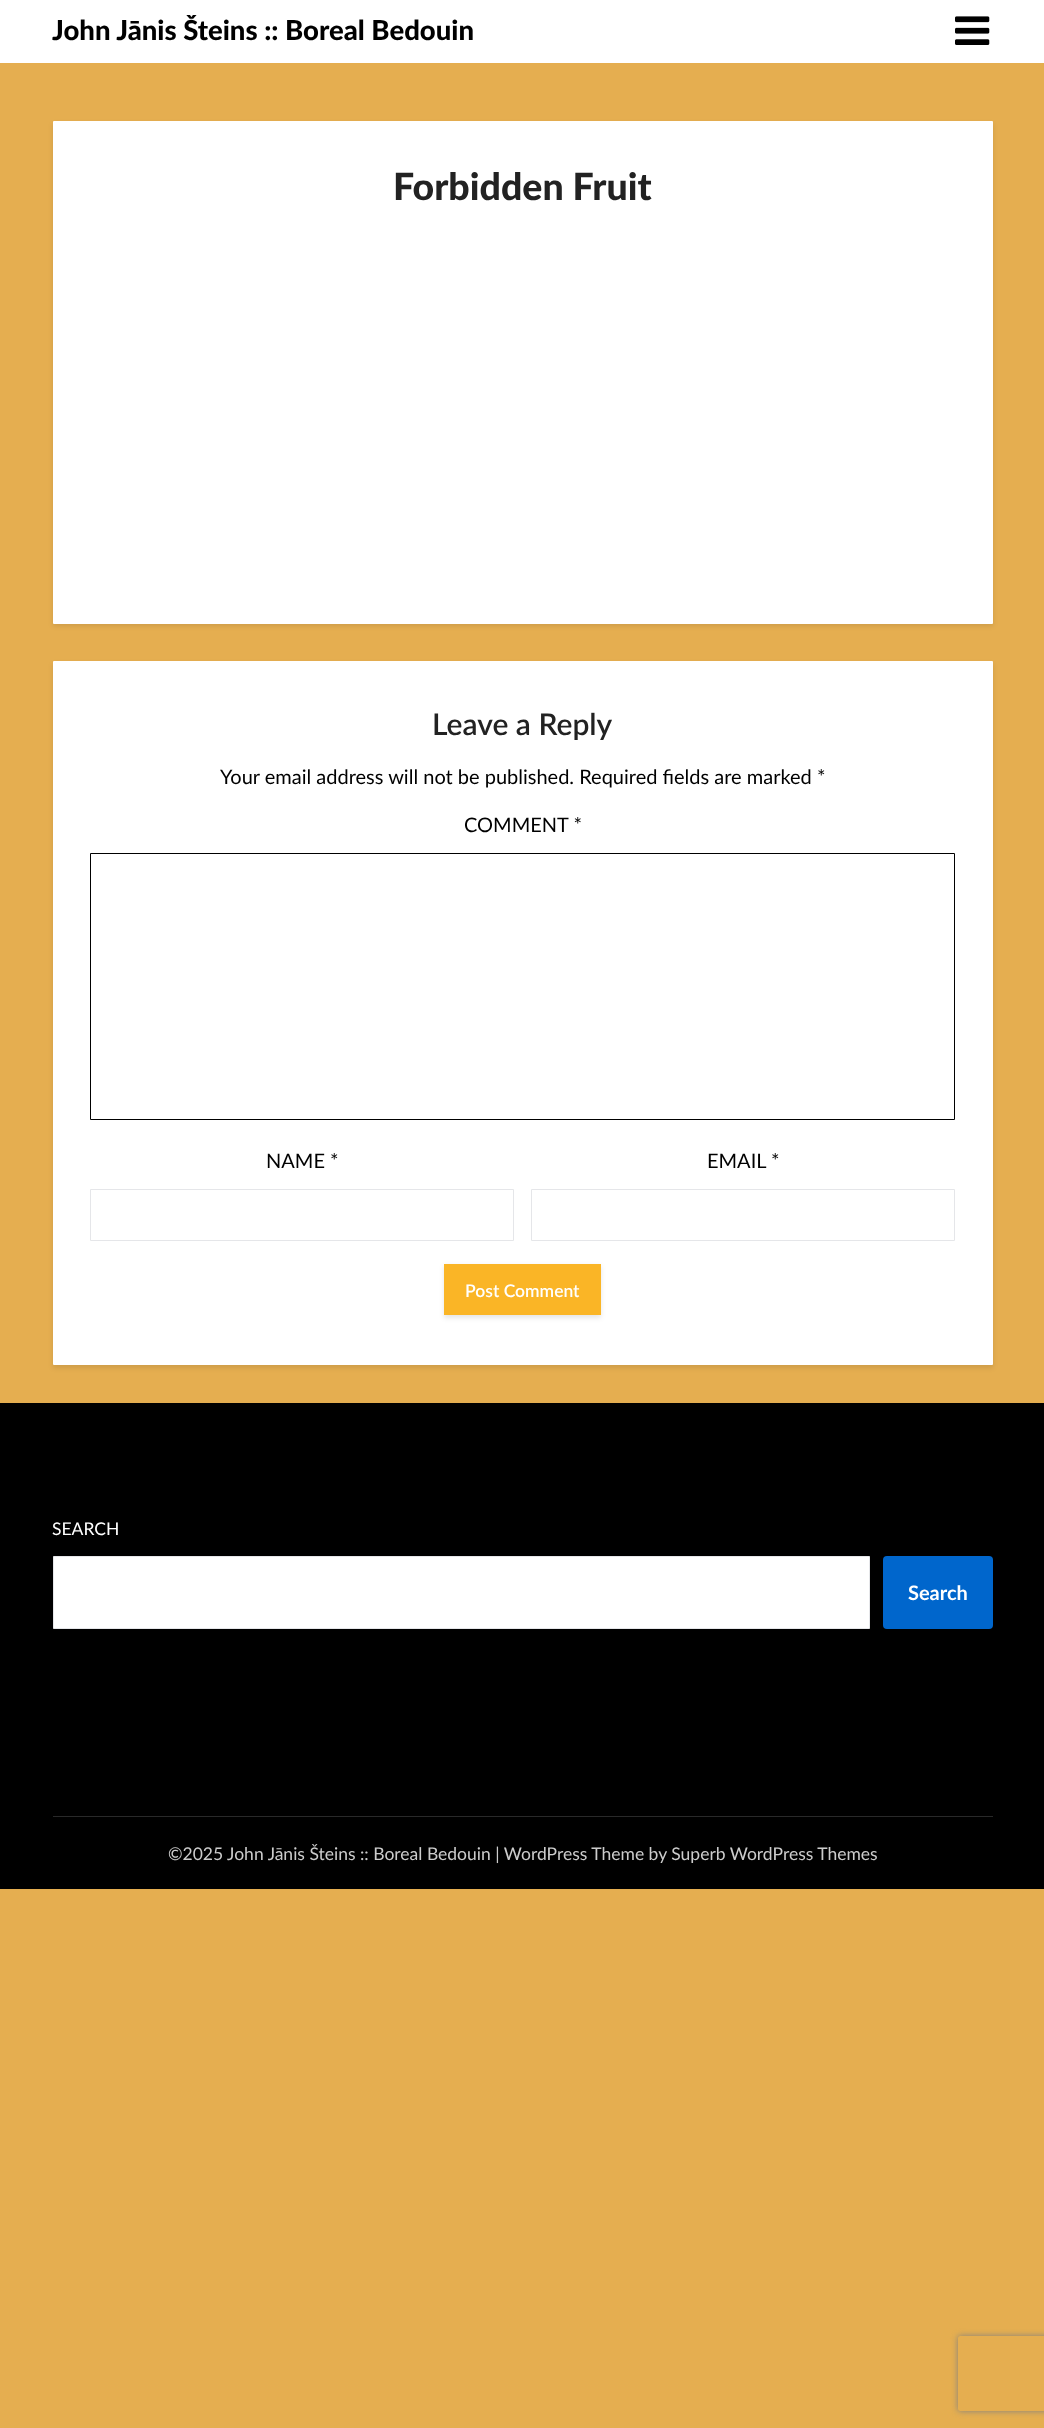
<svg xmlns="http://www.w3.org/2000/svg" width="1044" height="2428">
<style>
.a{font:900 27.5px Lato;fill:#000}
.b{font:900 37.5px Lato;fill:#222}
.c{font:600 30px Lato;fill:#222}
.d{font:20px Lato;fill:#000}
.e{font:600 17.5px Lato;fill:#fff}
.f{font:17.5px Lato;fill:#fff}
.g{font:bold 20px Lato;fill:#fff}
.h{font:17.5px Lato;fill:#ccc}
</style>
<defs>
<clipPath id="clip1"><path d="M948 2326h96v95h-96zm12.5 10h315c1.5 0 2.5 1 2.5 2.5v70c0 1.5-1 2.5-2.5 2.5h-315c-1.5 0-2.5-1-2.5-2.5v-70c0-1.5 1-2.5 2.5-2.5z" clip-rule="evenodd"/></clipPath>
</defs>
<rect width="100%" height="100%" fill="#e5ae50"/>
<path fill="#fff" d="M0 0h1044v63H0z"/>
<image href="1.png" x="955" y="16" width="35" height="29"/>
<rect fill="#0000001a" filter="blur(2.5px)" x="53" y="124" width="940" height="502" rx="1"/>
<rect fill="#fff" x="53" y="121" width="940" height="503" rx="1"/>
<rect fill="#0000001a" filter="blur(2.5px)" x="53" y="664" width="940" height="704" rx="1"/>
<rect fill="#fff" x="53" y="661" width="940" height="704" rx="1"/>
<path fill="none" stroke="#000" d="M90.5 853.5h864v266H90.5z"/>
<path fill="none" stroke="#e5e6e9" d="M90.5 1189.5h423v51H90.5z"/>
<path fill="none" stroke="#e5e6e9" d="M531.5 1189.5h423v51H531.5z"/>
<path fill="#0000001a" filter="blur(2.5px)" d="M444 1266h157v52H444z"/>
<path fill="#fab526" d="M444 1264h157v51H444z"/>
<path fill="#000" d="M0 1403h1044v486H0z"/>
<path fill="#fff" stroke="#e5e6e9" d="M53.5 1556.5h816v72H53.5z"/>
<rect fill="#06c" x="883" y="1556" width="110" height="73" rx="4"/>
<path fill="#292929" d="M53 1816h940v1H53z"/>
<g clip-path="url(#clip1)">
<rect fill="#808080" filter="blur(3px)" x="958" y="2336" width="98" height="75" rx="2.5"/>
</g>
<text class="a" x="52" y="40">John Jānis Šteins :: Boreal Bedouin</text>
<text class="b" x="393" y="200">Forbidden Fruit</text>
<text class="c" x="432" y="735">Leave a Reply</text>
<text class="d" x="220" y="784">Your email address will not be published. Required fields are marked *</text>
<text class="d" x="464" y="832">COMMENT *</text>
<text class="d" x="266" y="1168">NAME *</text>
<text class="d" x="707" y="1168">EMAIL *</text>
<text class="e" x="465" y="1297">Post Comment</text>
<text class="f" x="52" y="1535">SEARCH</text>
<text class="g" x="908" y="1600">Search</text>
<text class="h" x="168" y="1860">©2025 John Jānis Šteins :: Boreal Bedouin | WordPress Theme by Superb WordPress Themes</text>
</svg>
